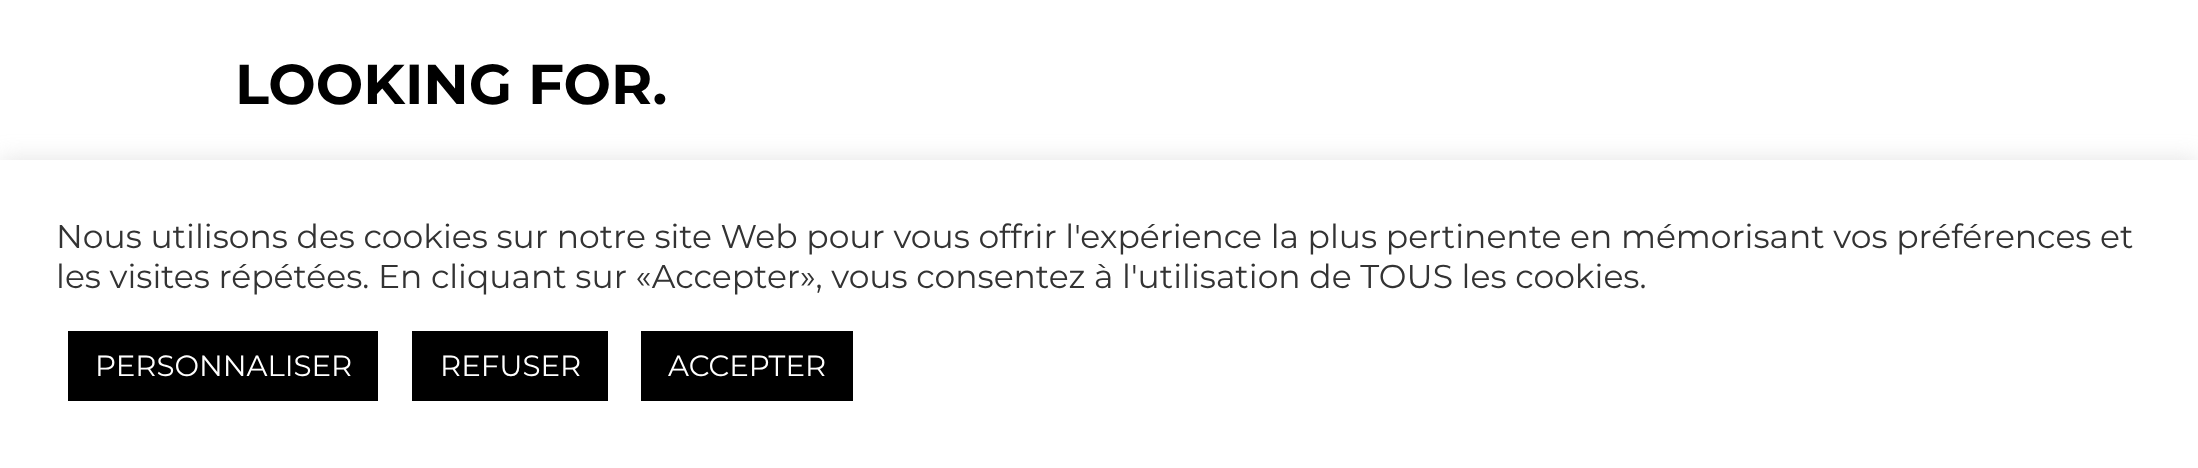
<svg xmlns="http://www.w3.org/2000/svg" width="2198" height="468">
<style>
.a{font:bold 56.25px Montserrat;fill:#000}
.b{font:33px Montserrat;fill:#333}
.c{font:29.25px Montserrat;fill:#fff}
</style>
<rect width="100%" height="100%" fill="#fff"/>
<path fill="#acabab4d" filter="blur(11px)" d="M0 158h2198v308H0z"/>
<path fill="#fff" d="M0 160h2198v308H0z"/>
<path fill="#000" d="M68 331h310v70H68z"/>
<path fill="#000" d="M412 331h196v70H412z"/>
<path fill="#000" d="M641 331h212v70H641z"/>
<text class="a" x="235" y="104">LOOKING FOR.</text>
<text class="b" x="56" y="248">Nous utilisons des cookies sur notre site Web pour vous offrir l'expérience la plus pertinente en mémorisant vos préférences et</text>
<text class="b" x="56" y="288">les visites répétées. En cliquant sur «Accepter», vous consentez à l'utilisation de TOUS les cookies.</text>
<text class="c" x="95" y="376">PERSONNALISER</text>
<text class="c" x="440" y="376">REFUSER</text>
<text class="c" x="668" y="376">ACCEPTER</text>
</svg>
